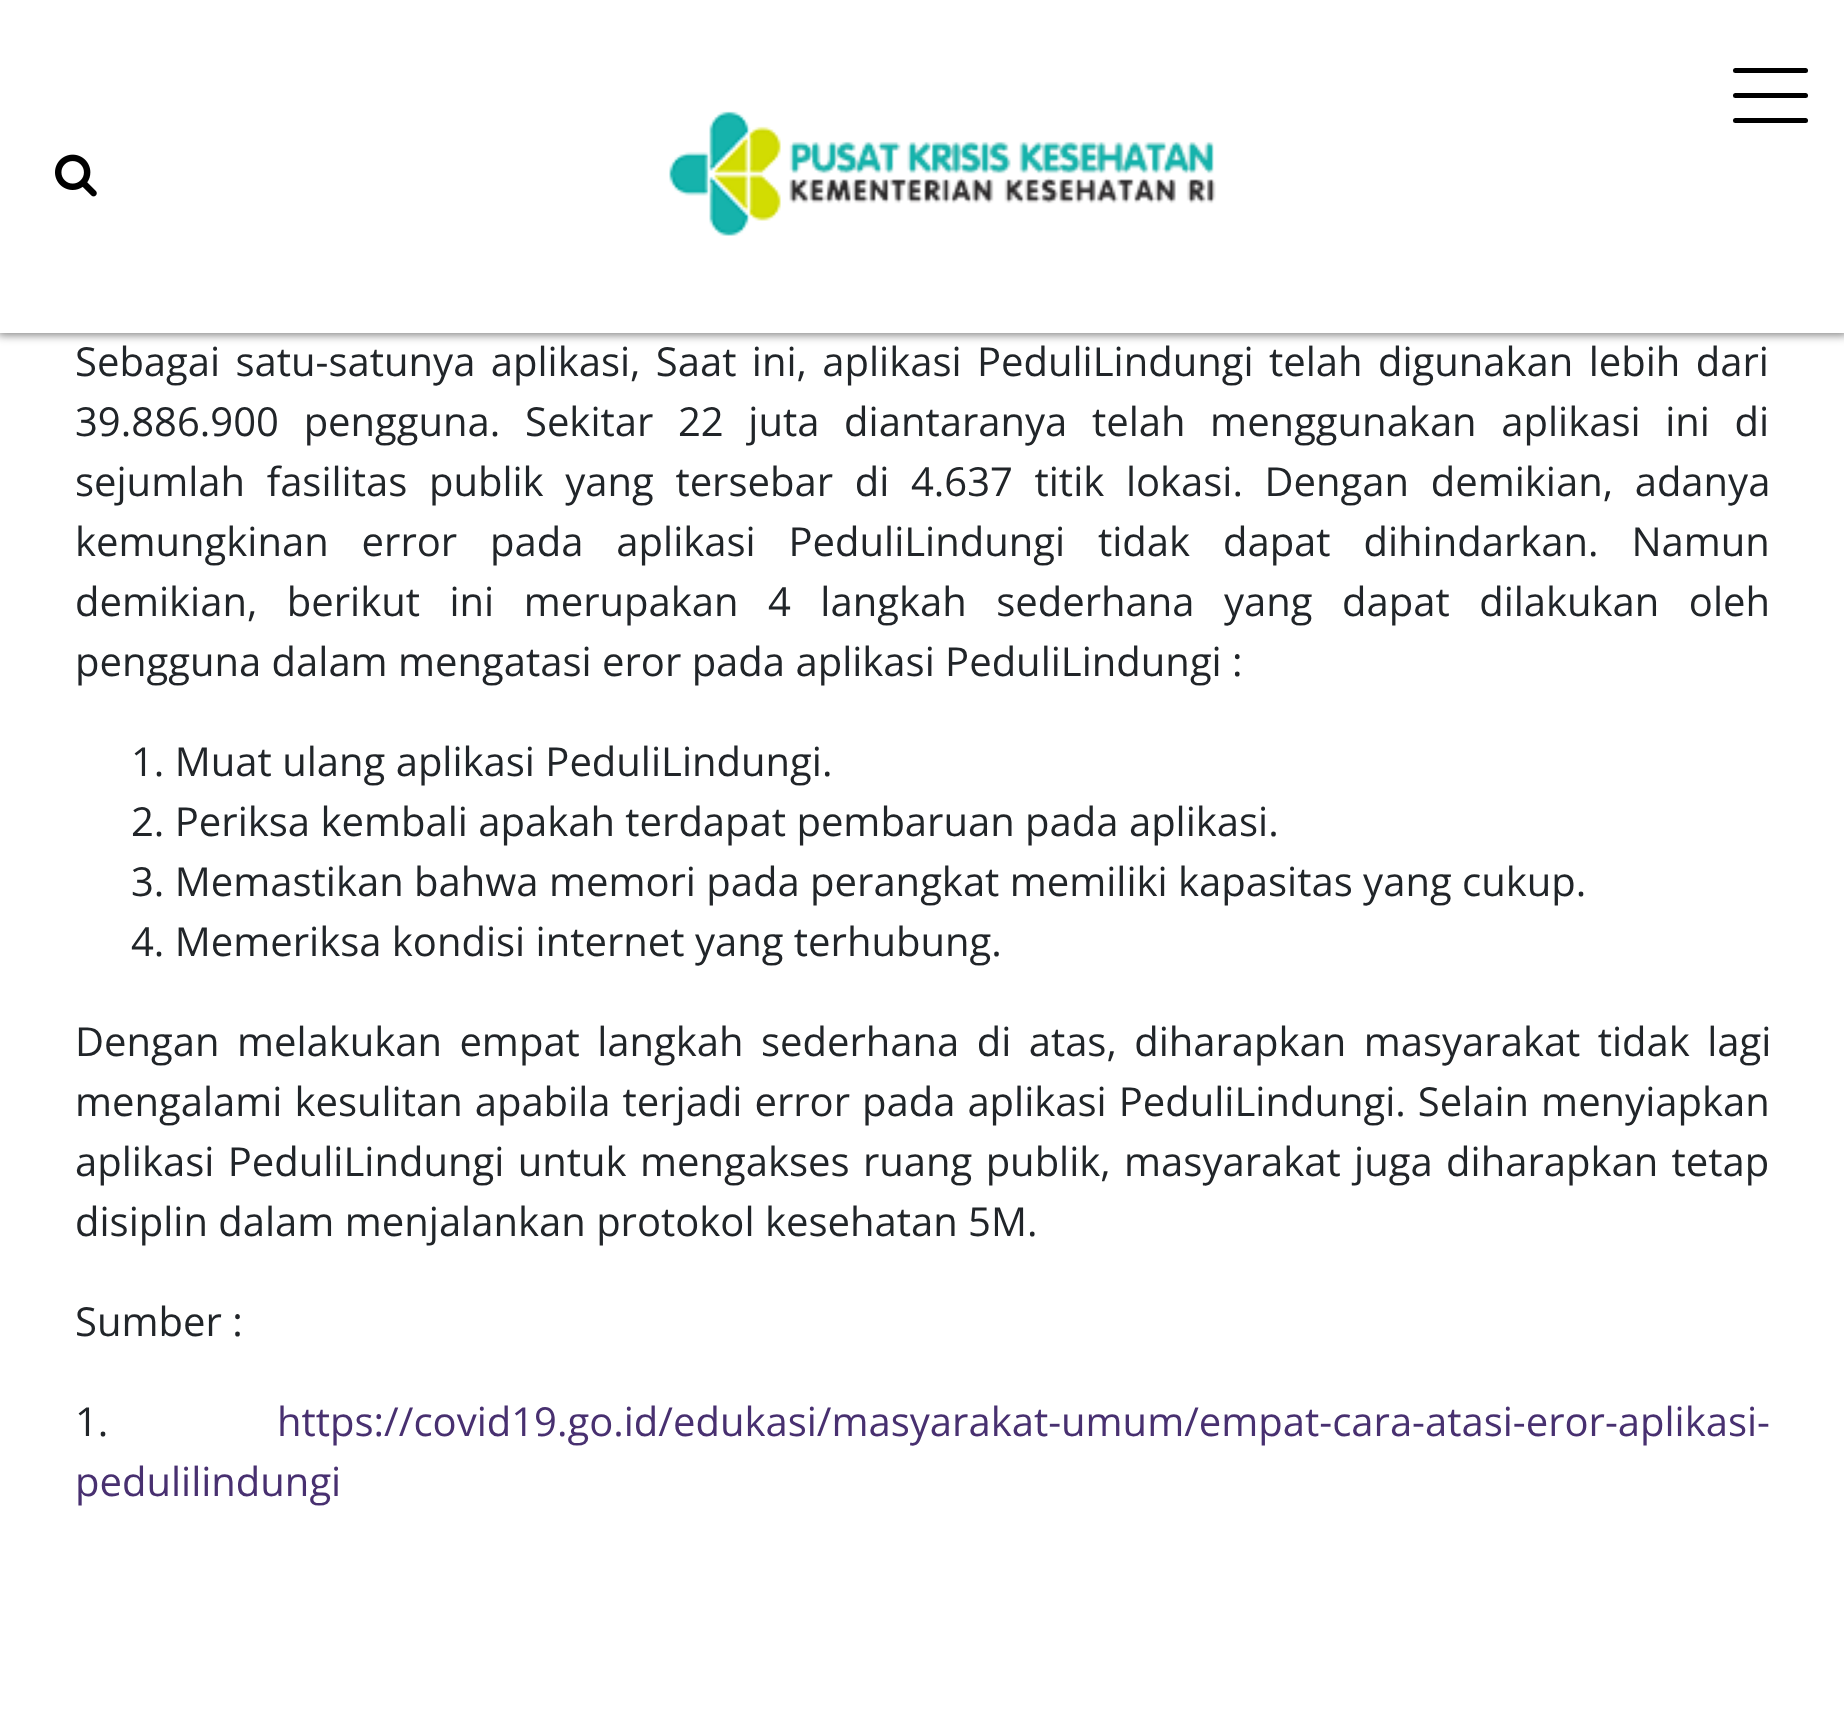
<svg xmlns="http://www.w3.org/2000/svg" width="1844" height="1724">
<style>
.a{font:40px Open Sans;fill:#212529}
.b{font:40px Open Sans;fill:#483070}
</style>
<rect width="100%" height="100%" fill="#fff"/>
<path fill="#00000080" filter="blur(5px)" d="M-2 -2h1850v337H-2z"/>
<path fill="#fff" d="M0 0h1844v333H0z"/>
<image href="1.png" x="55" y="154" width="42" height="43"/>
<image href="2.png" x="669" y="111" width="547" height="125"/>
<rect fill="#000" x="1733" y="68" width="75" height="5" rx="2.5"/>
<rect fill="#000" x="1733" y="93" width="75" height="5" rx="2.5"/>
<rect fill="#000" x="1733" y="118" width="75" height="5" rx="2.5"/>
<text class="a" x="75" y="376" word-spacing="5">Sebagai satu-satunya aplikasi, Saat ini, aplikasi PeduliLindungi telah digunakan lebih dari</text>
<text class="a" x="75" y="436" word-spacing="14.25">39.886.900 pengguna. Sekitar 22 juta diantaranya telah menggunakan aplikasi ini di</text>
<text class="a" x="75" y="496" word-spacing="11.25">sejumlah fasilitas publik yang tersebar di 4.637 titik lokasi. Dengan demikian, adanya</text>
<text class="a" x="75" y="556" word-spacing="22.5">kemungkinan error pada aplikasi PeduliLindungi tidak dapat dihindarkan. Namun</text>
<text class="a" x="75" y="616" word-spacing="19.1">demikian, berikut ini merupakan 4 langkah sederhana yang dapat dilakukan oleh</text>
<text class="a" x="75" y="676">pengguna dalam mengatasi eror pada aplikasi PeduliLindungi :</text>
<text class="a" x="131" y="776">1. Muat ulang aplikasi PeduliLindungi.</text>
<text class="a" x="131" y="836">2. Periksa kembali apakah terdapat pembaruan pada aplikasi.</text>
<text class="a" x="131" y="896">3. Memastikan bahwa memori pada perangkat memiliki kapasitas yang cukup.</text>
<text class="a" x="131" y="956">4. Memeriksa kondisi internet yang terhubung.</text>
<text class="a" x="75" y="1056" word-spacing="7">Dengan melakukan empat langkah sederhana di atas, diharapkan masyarakat tidak lagi</text>
<text class="a" x="75" y="1116" word-spacing="1.6">mengalami kesulitan apabila terjadi error pada aplikasi PeduliLindungi. Selain menyiapkan</text>
<text class="a" x="75" y="1176" word-spacing="3">aplikasi PeduliLindungi untuk mengakses ruang publik, masyarakat juga diharapkan tetap</text>
<text class="a" x="75" y="1236">disiplin dalam menjalankan protokol kesehatan 5M.</text>
<text class="a" x="75" y="1336">Sumber :</text>
<text class="a" x="75" y="1436">1.</text>
<text class="b" x="277" y="1436">https://covid19.go.id/edukasi/masyarakat-umum/empat-cara-atasi-eror-aplikasi-</text>
<text class="b" x="75" y="1496">pedulilindungi</text>
</svg>
